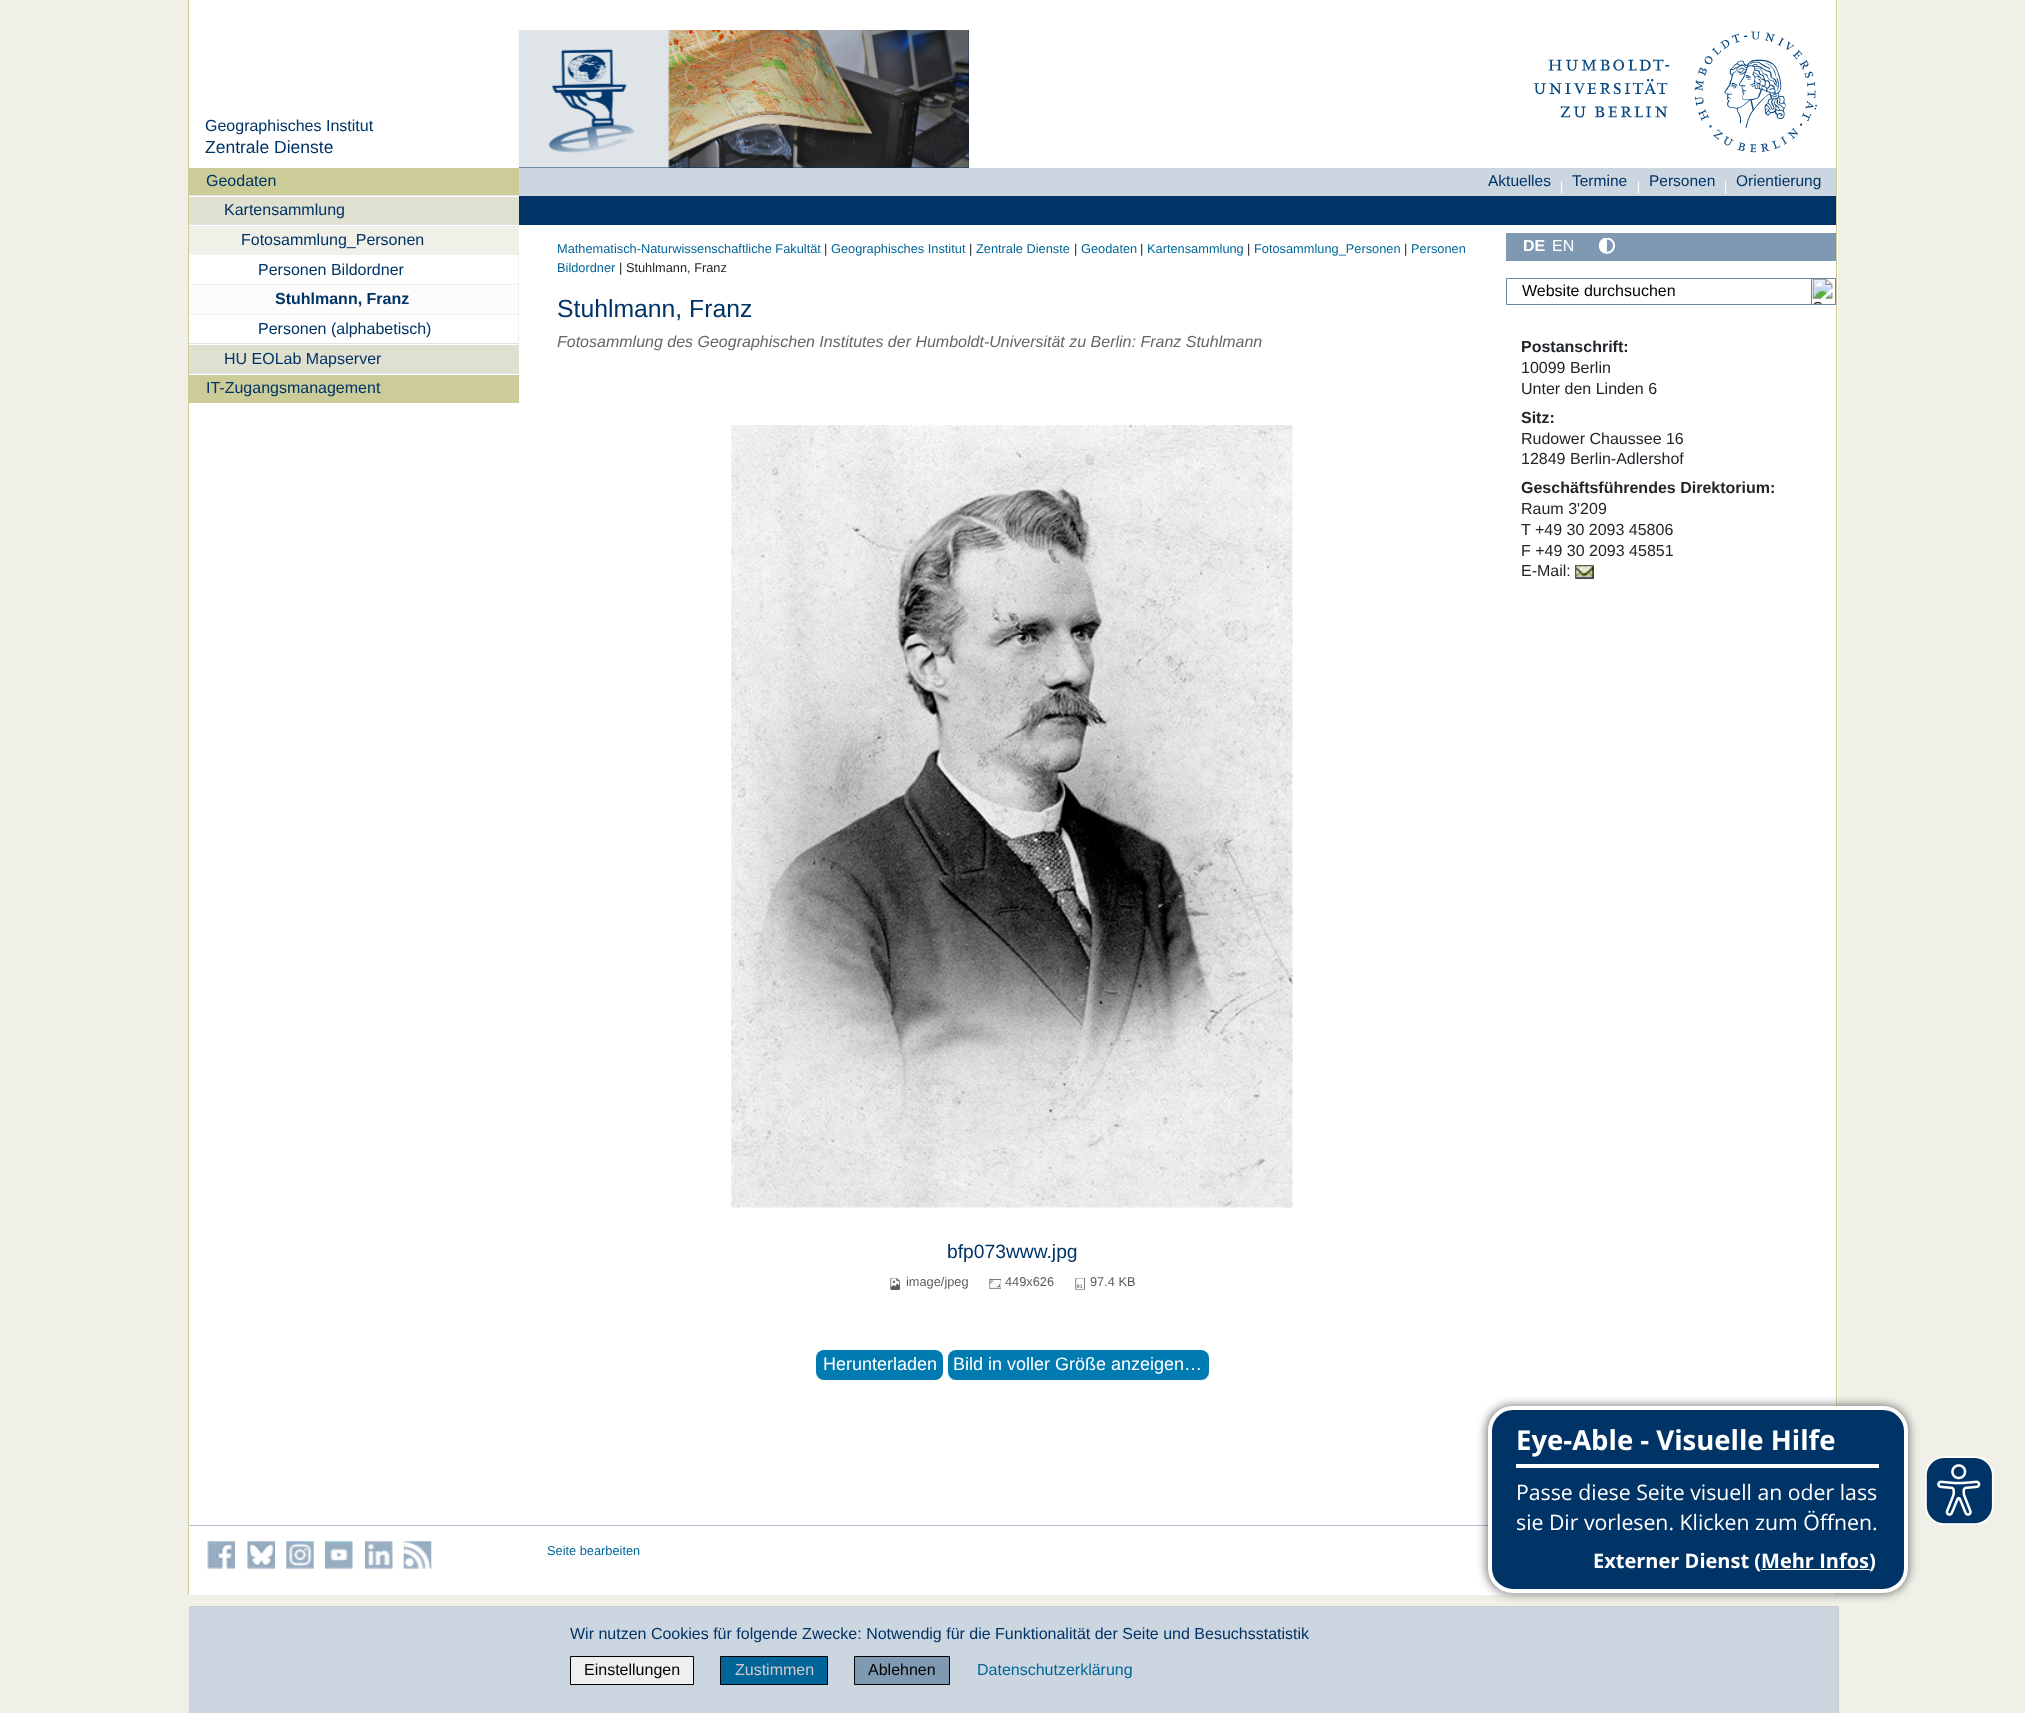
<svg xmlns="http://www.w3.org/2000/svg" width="2025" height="1713">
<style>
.a{font:16px Liberation Sans;fill:#036}
.b{font:17.5px Liberation Sans;fill:#036}
.c{font:bold 16px Liberation Sans;fill:#036}
.d{font:15.5px Liberation Sans;fill:#036}
.e{font:12.8px Liberation Sans;fill:#069}
.f{font:12.8px Liberation Sans;fill:#212529}
.g{font:24.75px Liberation Sans;fill:#036}
.h{font:italic 16px Liberation Sans;fill:#666}
.i{font:19.25px Liberation Sans;fill:#036}
.j{font:12.8px Liberation Sans;fill:#595c5f}
.k{font:18px Liberation Sans;fill:#fff}
.l{font:bold 16px Liberation Sans;fill:#fff}
.m{font:16px Liberation Sans;fill:#fff}
.n{font:16px Liberation Sans;fill:#000}
.o{font:bold 16px Liberation Sans;fill:#212529}
.p{font:16px Liberation Sans;fill:#212529}
.q{font:bold 27.5px Open Sans;fill:#fff}
.r{font:21.25px Open Sans;fill:#fff}
.s{font:bold 20px Open Sans;fill:#fff}
.t{font:16px Liberation Sans;fill:#d5c7c7}
.u{font:16px Liberation Sans;fill:#069}
</style>
<rect width="100%" height="100%" fill="#f0f0e8"/>
<path fill="#fff" d="M189 0h1649v1595H189z"/>
<path fill="#036" d="M519 30h450v138H519z"/>
<image href="1.png" x="518" y="30" width="451" height="138"/>
<image href="2.png" x="1534" y="31" width="283" height="122"/>
<path fill="#cc9" d="M1836 0h1v1406H1836z"/>
<path fill="#cc9" d="M188 0h1v1595H188z"/>
<path fill="#cc9" d="M189 168h330v27H189z"/>
<path fill="#e0e0d1" d="M189 197h330v27H189z"/>
<path fill="#dee2e6" d="M189 195h330v1H189z"/>
<path fill="#f0f0e8" d="M189 226h329v29H189z"/>
<path fill="#dee2e6" d="M189 224h330v1H189z"/>
<path fill="#f0f0e8" d="M518 224h1v119H518z"/>
<path fill="#f0f0e8" d="M189 284h329v1H189z"/>
<path fill="#fcfcfd" d="M189 286h329v28H189z"/>
<path fill="#f0f0e8" d="M189 314h329v1H189z"/>
<path fill="#e0e0d1" d="M189 345h330v28H189z"/>
<path fill="#dee2e6" d="M189 343h330v1H189z"/>
<path fill="#cc9" d="M189 375h330v28H189z"/>
<path fill="#dee2e6" d="M189 373h330v1H189z"/>
<path fill="#ccd6e0" d="M519 168h1317v28H519z"/>
<path fill="#fff" d="M1561 181h1v13H1561z"/>
<path fill="#fff" d="M1638 181h1v13H1638z"/>
<path fill="#fff" d="M1725 181h1v13H1725z"/>
<path fill="#036" d="M519 196h1317v29H519z"/>
<image href="3.png" x="731" y="425" width="562" height="783"/>
<image href="4.png" x="890" y="1278" width="10" height="12"/>
<image href="5.png" x="989" y="1279" width="12" height="10"/>
<image href="6.png" x="1075" y="1278" width="10" height="12"/>
<rect fill="#007bb1" x="816" y="1350" width="127" height="30" rx="8"/>
<rect fill="#007bb1" x="948" y="1350" width="261" height="30" rx="8"/>
<path fill="#8099b2" d="M1506 233h330v28H1506z"/>
<image href="7.png" x="1599" y="238" width="16" height="16"/>
<path fill="none" stroke="#6685a3" d="M1506.5 278.5h329v26H1506.5z"/>
<path fill="none" stroke="#6685a3" d="M1811.5 278.5h24v26H1811.5z"/>
<image href="8.png" x="1812" y="279" width="21" height="25"/>
<image href="9.png" x="1575" y="565" width="19" height="14"/>
<path fill="#cc9" d="M1836 1593h1v2H1836z"/>
<path fill="#b2c1d1" d="M189 1525h1299v1H189z"/>
<path fill="#ccd6e0" stroke="#ccc" d="M189.5 1606.5h1649v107H189.5z"/>
<rect fill="#00000080" filter="blur(5px)" x="1486" y="1405" width="423" height="189" rx="26"/>
<rect fill="#036" stroke="#fff" stroke-width="4" x="1490" y="1408" width="416" height="183" rx="23"/>
<path fill="#fff" d="M1516 1464h363v4H1516z"/>
<path fill="#fff" d="M1761 1569h109v1H1761z"/>
<image href="10.png" x="1925" y="1456" width="69" height="69"/>
<image href="11.png" x="207" y="1541" width="28" height="28"/>
<image href="12.png" x="247" y="1541" width="28" height="28"/>
<image href="13.png" x="286" y="1541" width="28" height="28"/>
<image href="14.png" x="325" y="1541" width="28" height="28"/>
<image href="15.png" x="365" y="1541" width="28" height="28"/>
<image href="16.png" x="403" y="1541" width="29" height="28"/>
<path fill="#efefef" stroke="#000" d="M570.5 1656.5h123v28H570.5z"/>
<path fill="#069" stroke="#000" d="M720.5 1656.5h107v28H720.5z"/>
<path fill="#8099b2" stroke="#000" d="M854.5 1656.5h95v28H854.5z"/>
<text class="a" x="205" y="131">Geographisches Institut</text>
<text class="b" x="205" y="153">Zentrale Dienste</text>
<text class="a" x="206" y="186">Geodaten</text>
<text class="a" x="224" y="215">Kartensammlung</text>
<text class="a" x="241" y="245">Fotosammlung_Personen</text>
<text class="a" x="258" y="275">Personen Bildordner</text>
<text class="c" x="275" y="304">Stuhlmann, Franz</text>
<text class="a" x="258" y="334">Personen (alphabetisch)</text>
<text class="a" x="224" y="364">HU EOLab Mapserver</text>
<text class="a" x="206" y="393">IT-Zugangsmanagement</text>
<text class="d" x="1488" y="186">Aktuelles</text>
<text class="d" x="1572" y="186">Termine</text>
<text class="d" x="1649" y="186">Personen</text>
<text class="d" x="1736" y="186">Orientierung</text>
<text class="e" x="557" y="253">Mathematisch-Naturwissenschaftliche Fakultät</text>
<text class="f" x="824" y="253">|</text>
<text class="e" x="831" y="253">Geographisches Institut</text>
<text class="f" x="969" y="253">|</text>
<text class="e" x="976" y="253">Zentrale Dienste</text>
<text class="f" x="1074" y="253">|</text>
<text class="e" x="1081" y="253">Geodaten</text>
<text class="f" x="1140" y="253">|</text>
<text class="e" x="1147" y="253">Kartensammlung</text>
<text class="f" x="1247" y="253">|</text>
<text class="e" x="1254" y="253">Fotosammlung_Personen</text>
<text class="f" x="1404" y="253">|</text>
<text class="e" x="1411" y="253">Personen</text>
<text class="e" x="557" y="272">Bildordner</text>
<text class="f" x="619" y="272">| Stuhlmann, Franz</text>
<text class="g" x="557" y="317">Stuhlmann, Franz</text>
<text class="h" x="557" y="347">Fotosammlung des Geographischen Institutes der Humboldt-Universität zu Berlin: Franz Stuhlmann</text>
<text class="i" x="947" y="1258">bfp073www.jpg</text>
<text class="j" x="906" y="1286">image/jpeg</text>
<text class="j" x="1005" y="1286">449x626</text>
<text class="j" x="1090" y="1286">97.4 KB</text>
<text class="k" x="823" y="1370">Herunterladen</text>
<text class="k" x="953" y="1370">Bild in voller Größe anzeigen…</text>
<text class="l" x="1523" y="251">DE</text>
<text class="m" x="1552" y="251">EN</text>
<text class="n" x="1522" y="296">Website durchsuchen</text>
<text class="o" x="1521" y="352">Postanschrift:</text>
<text class="p" x="1521" y="373">10099 Berlin</text>
<text class="p" x="1521" y="394">Unter den Linden 6</text>
<text class="o" x="1521" y="423">Sitz:</text>
<text class="p" x="1521" y="444">Rudower Chaussee 16</text>
<text class="p" x="1521" y="464">12849 Berlin-Adlershof</text>
<text class="o" x="1521" y="493">Geschäftsführendes Direktorium:</text>
<text class="p" x="1521" y="514">Raum 3'209</text>
<text class="p" x="1521" y="535">T +49 30 2093 45806</text>
<text class="p" x="1521" y="556">F +49 30 2093 45851</text>
<text class="p" x="1521" y="576">E-Mail:</text>
<text class="q" x="1516" y="1450">Eye-Able - Visuelle Hilfe</text>
<text class="r" x="1516" y="1500">Passe diese Seite visuell an oder lass</text>
<text class="r" x="1516" y="1530">sie Dir vorlesen. Klicken zum Öffnen.</text>
<text class="s" x="1593" y="1568">Externer Dienst (Mehr Infos)</text>
<text class="e" x="547" y="1555">Seite bearbeiten</text>
<text class="a" x="570" y="1639">Wir nutzen Cookies für folgende Zwecke: Notwendig für die Funktionalität der Seite und Besuchsstatistik</text>
<text class="n" x="584" y="1675">Einstellungen</text>
<text class="t" x="735" y="1675">Zustimmen</text>
<text class="n" x="868" y="1675">Ablehnen</text>
<text class="u" x="977" y="1675">Datenschutzerklärung</text>
</svg>
